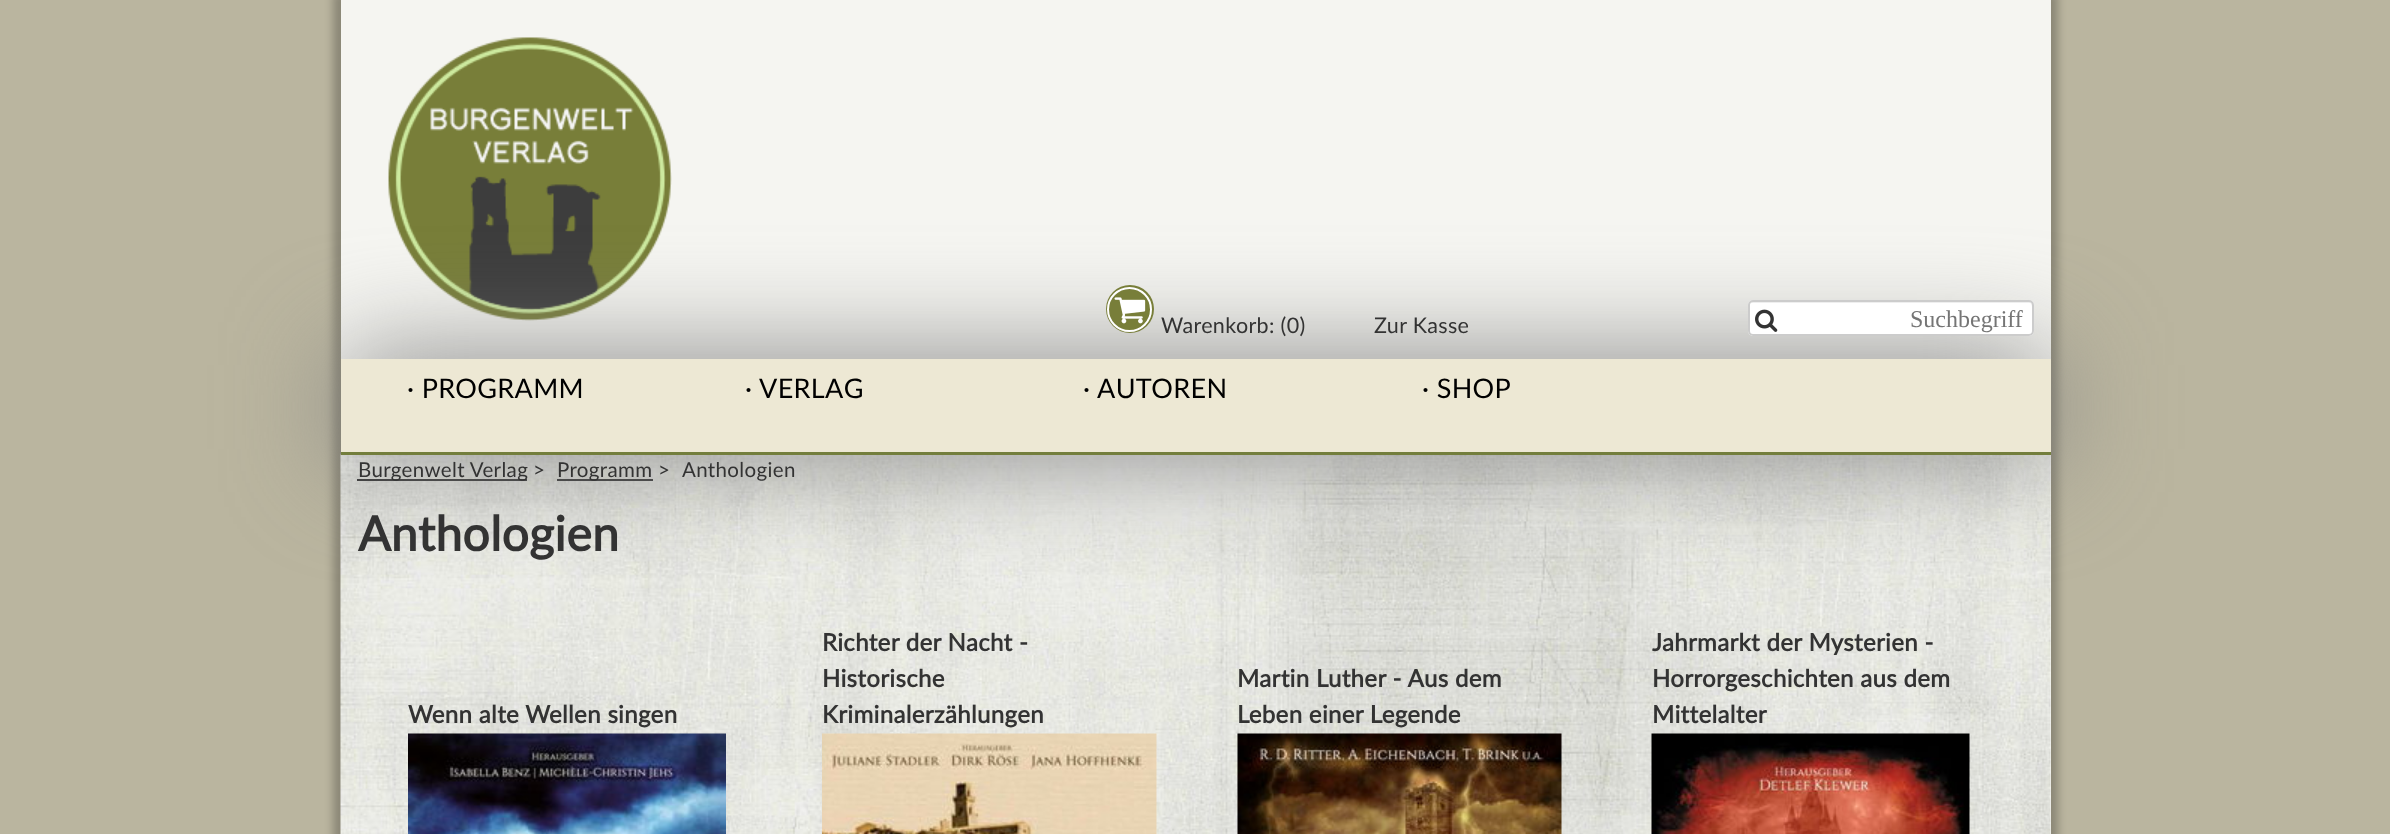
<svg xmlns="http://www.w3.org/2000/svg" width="2390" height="834">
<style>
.a{font:21.5px Lato;letter-spacing:0.35px;fill:#333}
.b{font:24px Liberation Serif;fill:#757575}
.c{font:27px Lato;letter-spacing:0.35px;fill:#000}
.d{font:20.5px Lato;letter-spacing:0.35px;fill:#333}
.e{font:bold 48px Lato;letter-spacing:0.35px;fill:#333}
.f{font:bold 24px Lato;letter-spacing:0.35px;fill:#333}
</style>
<rect width="100%" height="100%" fill="#bab59f"/>
<path fill="#00000040" filter="blur(4px)" d="M333 -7h1725v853H333z"/>
<path fill="#f5f5f1" d="M341 0h1710v834H341z"/>
<image href="1.png" x="388" y="37" width="284" height="284"/>
<image href="4.png" x="340" y="454" width="1711" height="380"/>
<path fill="#333" d="M357 479h170v2H357z"/>
<path fill="#333" d="M557 479h96v2H557z"/>
<path fill="#808080" filter="blur(56px)" d="M341 359h1710v96H341z"/>
<circle fill="#787e39" cx="1130" cy="309" r="24"/>
<circle fill="none" stroke="#fff" stroke-width="2" cx="1129.5" cy="309.5" r="21.5"/>
<image href="2.png" x="1114" y="297" width="32" height="27"/>
<rect fill="#fff" x="1748" y="300" width="286" height="36" rx="5"/>
<path fill="#eee" d="M1752 303h278c3 0 2 11 2 12v19c1 0 1-1 1-2v-27c0-2-1-3-3-3h-278c-2 0-3 1-3 3v1c0-2 1-3 3-3z"/>
<rect fill="none" stroke="#ccc" stroke-width="2" x="1749" y="301" width="284" height="34" rx="4"/>
<image href="3.png" x="1755" y="309" width="23" height="23"/>
<path fill="#ede8d4" d="M341 359h1710v93H341z"/>
<path fill="#737e3c" d="M341 452h1710v3H341z"/>
<image href="5.png" x="408" y="733" width="318" height="101"/>
<image href="6.png" x="822" y="733" width="335" height="101"/>
<image href="7.png" x="1237" y="733" width="325" height="101"/>
<image href="8.png" x="1651" y="733" width="319" height="101"/>
<text class="a" x="1161" y="333">Warenkorb: (0)</text>
<text class="a" x="1374" y="333">Zur Kasse</text>
<text class="b" x="1910" y="327">Suchbegriff</text>
<text class="c" x="407" y="398">· PROGRAMM</text>
<text class="c" x="745" y="398">·</text>
<text class="c" x="759" y="398">VERLAG</text>
<text class="c" x="1083" y="398">·</text>
<text class="c" x="1097" y="398">AUTOREN</text>
<text class="c" x="1422" y="398">· SHOP</text>
<text class="d" x="358" y="477">Burgenwelt Verlag</text>
<text class="d" x="533" y="477">&gt;</text>
<text class="d" x="557" y="477">Programm</text>
<text class="d" x="658" y="477">&gt;</text>
<text class="d" x="682" y="477">Anthologien</text>
<text class="e" x="358" y="551">Anthologien</text>
<text class="f" x="408" y="723">Wenn alte Wellen singen</text>
<text class="f" x="822" y="651">Richter der Nacht -</text>
<text class="f" x="822" y="687">Historische</text>
<text class="f" x="822" y="723">Kriminalerzählungen</text>
<text class="f" x="1237" y="687">Martin Luther - Aus dem</text>
<text class="f" x="1237" y="723">Leben einer Legende</text>
<text class="f" x="1652" y="651">Jahrmarkt der Mysterien -</text>
<text class="f" x="1652" y="687">Horrorgeschichten aus dem</text>
<text class="f" x="1652" y="723">Mittelalter</text>
</svg>
